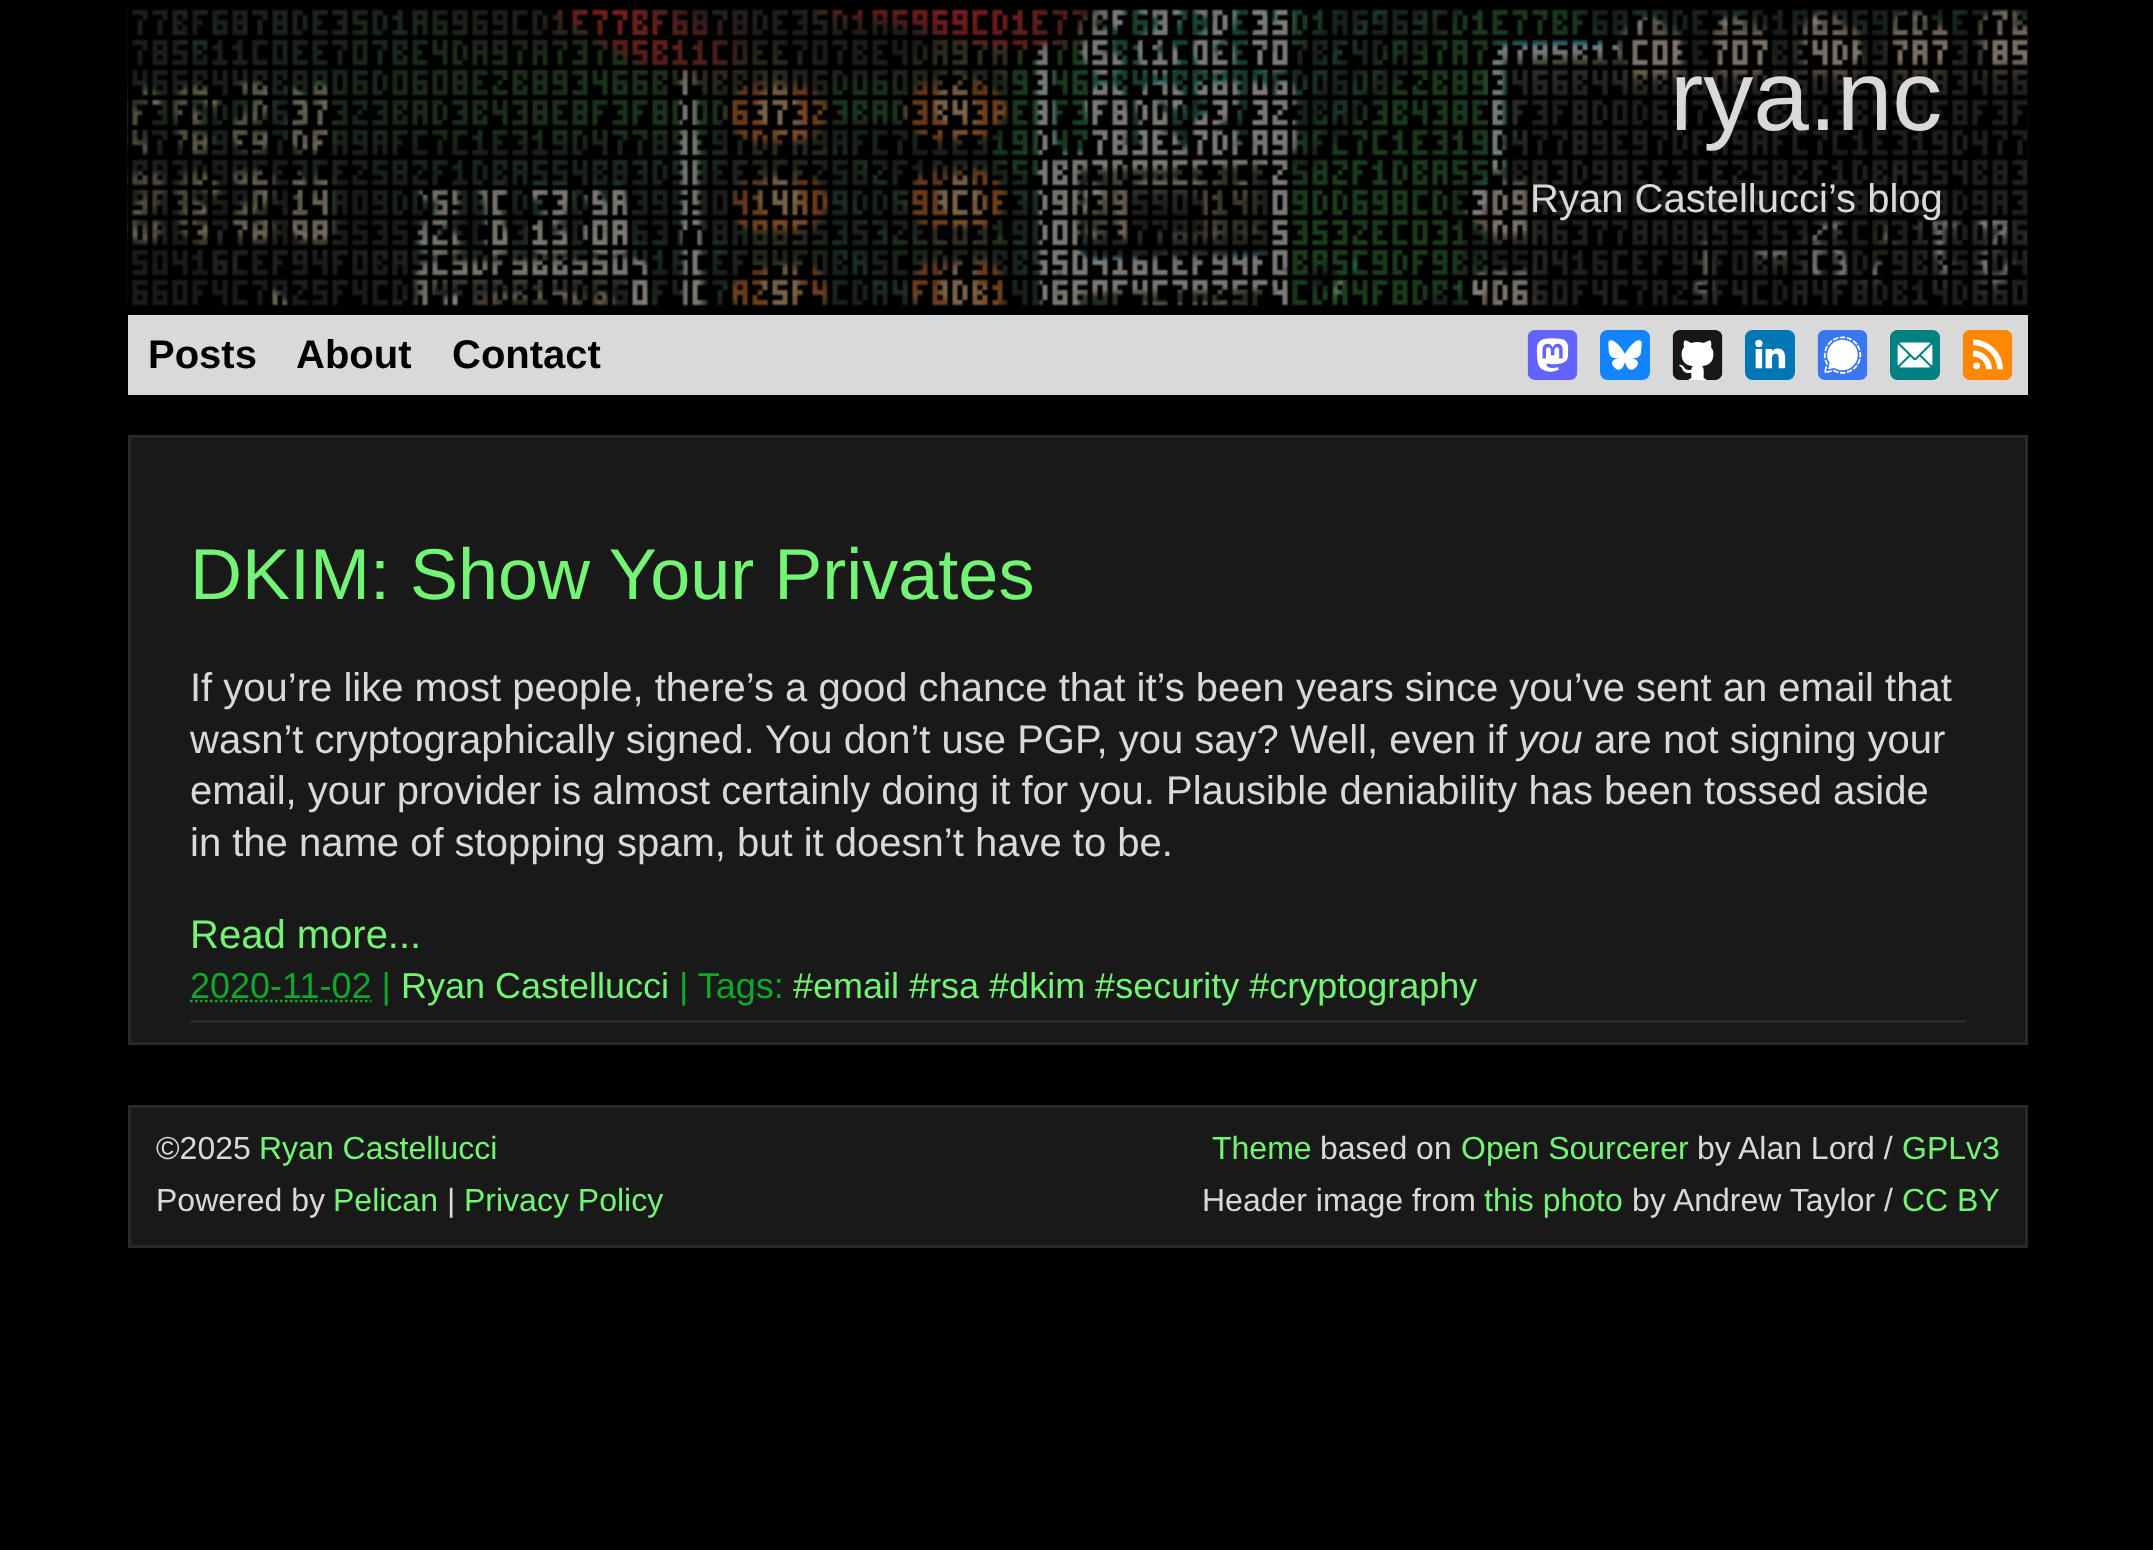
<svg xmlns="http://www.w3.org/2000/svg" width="2153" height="1550">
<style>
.a{font:100px Liberation Sans;fill:#d9d9d9}
.b{font:40px Liberation Sans;fill:#d9d9d9}
.c{font:bold 40px Liberation Sans;fill:#000}
.d{font:72px Liberation Sans;fill:#74f474}
.e{font:italic 40px Liberation Sans;fill:#d9d9d9}
.f{font:40px Liberation Sans;fill:#74f474}
.g{font:36px Liberation Sans;fill:#0ea82a}
.h{font:36px Liberation Sans;fill:#74f474}
.i{font:32px Liberation Sans;fill:#d9d9d9}
.j{font:32px Liberation Sans;fill:#74f474}
</style>
<rect width="100%" height="100%" fill="#000"/>
<image href="1.png" x="127" y="5" width="1901" height="305"/>
<path fill="#d9d9d9" d="M128 315h1900v80H128z"/>
<image href="2.png" x="1527" y="330" width="51" height="50"/>
<image href="3.png" x="1600" y="330" width="50" height="50"/>
<image href="4.png" x="1672" y="330" width="51" height="50"/>
<image href="5.png" x="1745" y="330" width="50" height="50"/>
<image href="6.png" x="1817" y="330" width="51" height="50"/>
<image href="7.png" x="1890" y="330" width="50" height="50"/>
<image href="8.png" x="1962" y="330" width="51" height="50"/>
<path fill="#191919" stroke="#292929" stroke-width="3" d="M129.5 436.5h1897v607H129.5z"/>
<path fill="#292929" d="M190 1020h1775v3H190z"/>
<path fill="none" stroke="#0ea82a" stroke-width="2.5" stroke-dasharray="2.5 2.5" d="M190 1001h181.5"/>
<path fill="#191919" stroke="#292929" stroke-width="3" d="M129.5 1106.5h1897v140H129.5z"/>
<text class="a" x="1670" y="130">rya.nc</text>
<text class="b" x="1530" y="212">Ryan Castellucci’s blog</text>
<text class="c" x="148" y="368">Posts</text>
<text class="c" x="296" y="368">About</text>
<text class="c" x="452" y="368">Contact</text>
<text class="d" x="190" y="599">DKIM: Show Your Privates</text>
<text class="b" x="190" y="701">If you’re like most people, there’s a good chance that it’s been years since you’ve sent an email that</text>
<text class="b" x="190" y="753">wasn’t cryptographically signed. You don’t use PGP, you say? Well, even if</text>
<text class="e" x="1518" y="753">you</text>
<text class="b" x="1594" y="753">are not signing your</text>
<text class="b" x="190" y="804">email, your provider is almost certainly doing it for you. Plausible deniability has been tossed aside</text>
<text class="b" x="190" y="856">in the name of stopping spam, but it doesn’t have to be.</text>
<text class="f" x="190" y="948">Read more...</text>
<text class="g" x="190" y="998">2020-11-02 |</text>
<text class="h" x="401" y="998">Ryan Castellucci</text>
<text class="g" x="679" y="998">| Tags:</text>
<text class="h" x="793" y="998">#email #rsa #dkim #security #cryptography</text>
<text class="i" x="156" y="1159">©2025</text>
<text class="j" x="259" y="1159">Ryan Castellucci</text>
<text class="i" x="156" y="1211">Powered by</text>
<text class="j" x="333" y="1211">Pelican</text>
<text class="i" x="447" y="1211">|</text>
<text class="j" x="464" y="1211">Privacy Policy</text>
<text class="j" x="1212" y="1159">Theme</text>
<text class="i" x="1320" y="1159">based on</text>
<text class="j" x="1461" y="1159">Open Sourcerer</text>
<text class="i" x="1697" y="1159">by Alan Lord /</text>
<text class="j" x="1902" y="1159">GPLv3</text>
<text class="i" x="1202" y="1211">Header image from</text>
<text class="j" x="1484" y="1211">this photo</text>
<text class="i" x="1632" y="1211">by Andrew Taylor /</text>
<text class="j" x="1902" y="1211">CC BY</text>
</svg>
